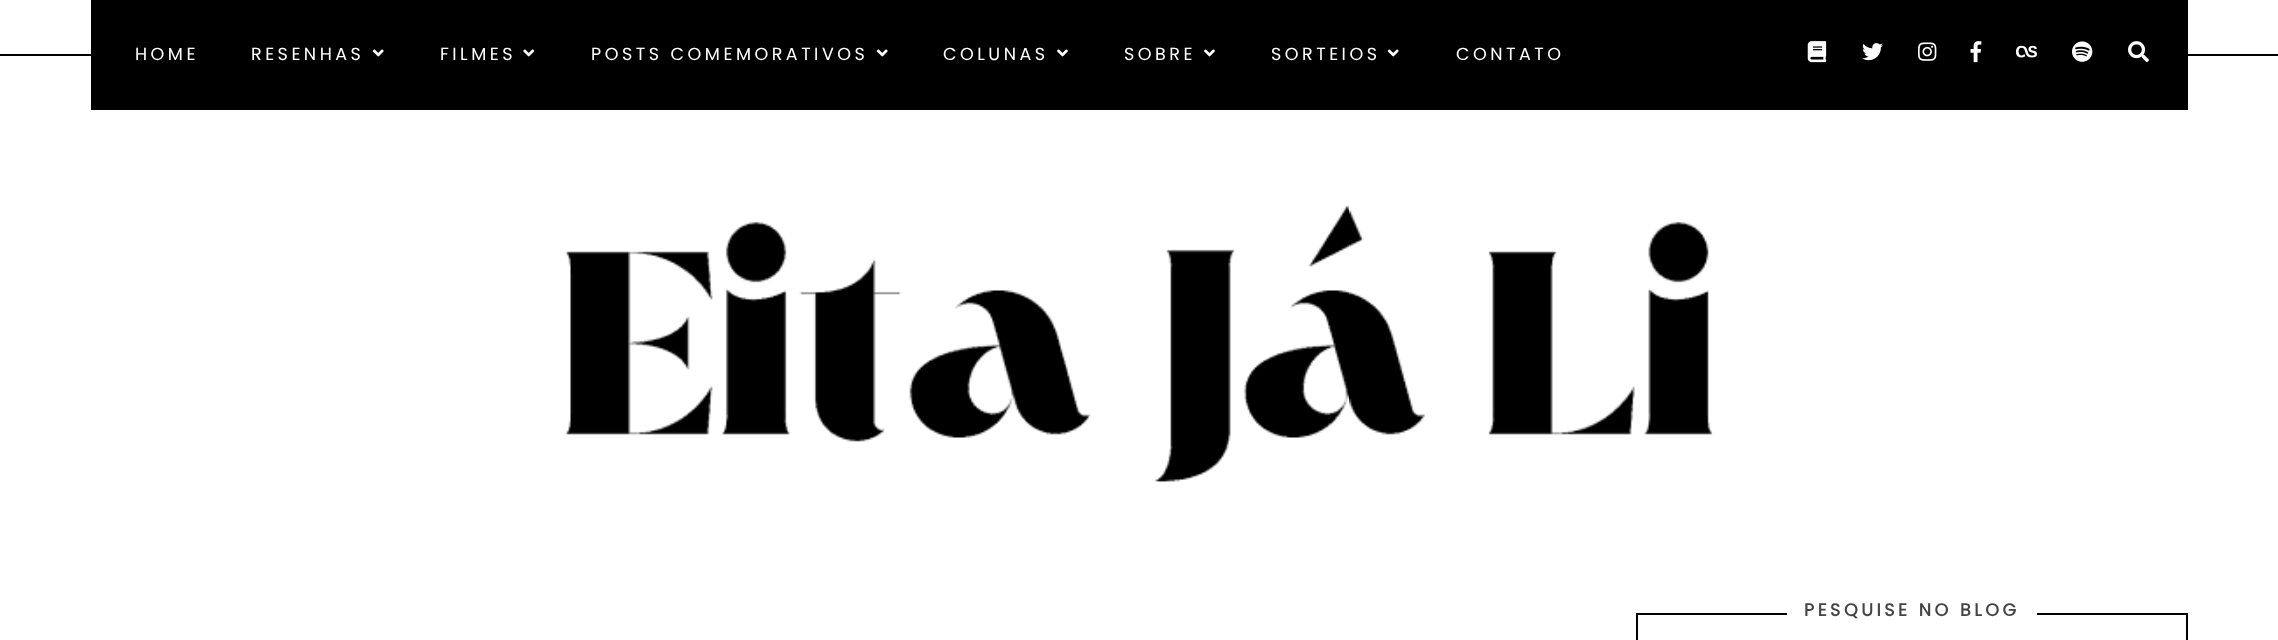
<svg xmlns="http://www.w3.org/2000/svg" width="2278" height="640">
<style>
.a{font:17.5px Poppins;letter-spacing:3.5px;fill:#fff}
.b{font:bold 17.5px Poppins;letter-spacing:3.5px;fill:#444}
</style>
<rect width="100%" height="100%" fill="#fff"/>
<path fill="#000" d="M0 54h2278v2H0z"/>
<path fill="#000" d="M91 0h2097v110H91z"/>
<image href="1.png" x="372" y="49" width="12" height="8"/>
<image href="2.png" x="523" y="49" width="12" height="8"/>
<image href="1.png" x="876" y="49" width="12" height="8"/>
<image href="3.png" x="1057" y="49" width="11" height="8"/>
<image href="3.png" x="1204" y="49" width="11" height="8"/>
<image href="1.png" x="1387" y="49" width="12" height="8"/>
<image href="4.png" x="1807" y="41" width="20" height="22"/>
<image href="5.png" x="1862" y="43" width="21" height="18"/>
<image href="6.png" x="1918" y="42" width="19" height="19"/>
<image href="7.png" x="1970" y="41" width="12" height="22"/>
<image href="8.png" x="2016" y="45" width="21" height="13"/>
<image href="9.png" x="2072" y="41" width="21" height="21"/>
<image href="10.png" x="2128" y="41" width="21" height="22"/>
<image href="11.png" x="565" y="205" width="1148" height="278"/>
<path fill="none" stroke="#000" stroke-width="2" d="M1637 614h550v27H1637z"/>
<path fill="#fff" d="M1787 613h250v2H1787z"/>
<text class="a" x="135" y="60">HOME</text>
<text class="a" x="251" y="60">RESENHAS</text>
<text class="a" x="440" y="60">FILMES</text>
<text class="a" x="591" y="60">POSTS COMEMORATIVOS</text>
<text class="a" x="943" y="60">COLUNAS</text>
<text class="a" x="1124" y="60">SOBRE</text>
<text class="a" x="1271" y="60">SORTEIOS</text>
<text class="a" x="1456" y="60">CONTATO</text>
<text class="b" x="1804" y="616">PESQUISE NO BLOG</text>
</svg>
